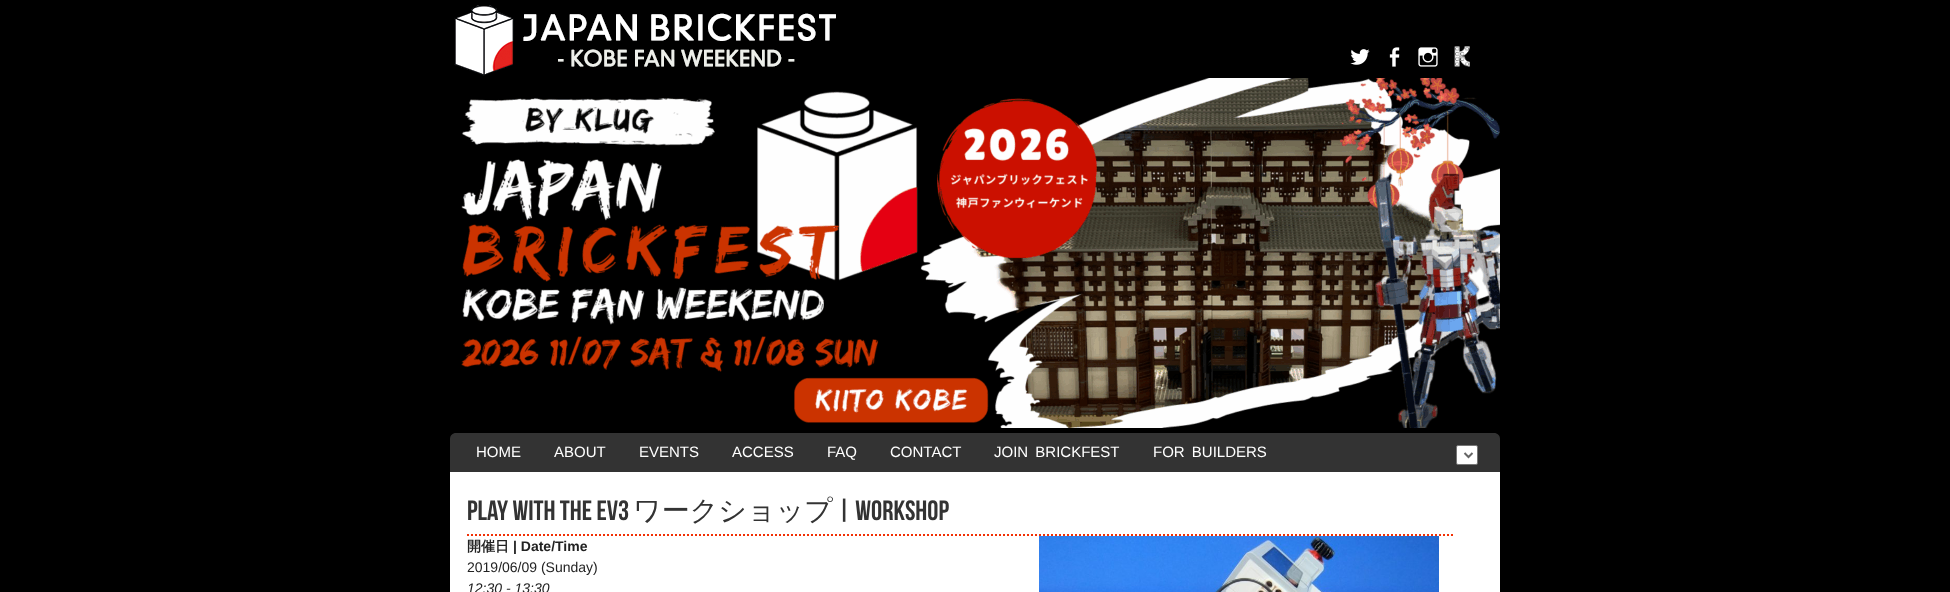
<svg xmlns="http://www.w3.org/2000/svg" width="1950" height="592">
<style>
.a{font:15px Liberation Sans;fill:#fff}
.b{font:28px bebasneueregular;fill:#333}
.c{font:500 28px WenQuanYi Zen Hei;fill:#333}
.d{font:bold 14px WenQuanYi Zen Hei;fill:#222}
.e{font:bold 14px Liberation Sans;fill:#222}
.f{font:14px Liberation Sans;fill:#222}
.g{font:italic 14px Liberation Sans;fill:#222}
</style>
<rect width="100%" height="100%" fill="#000"/>
<image href="1.png" x="454" y="5" width="382" height="71"/>
<image href="2.png" x="1350" y="49" width="20" height="16"/>
<image href="3.png" x="1389" y="47" width="11" height="20"/>
<image href="4.png" x="1418" y="47" width="20" height="20"/>
<image href="5.png" x="1454" y="46" width="16" height="21"/>
<image href="6.png" x="461" y="78" width="1039" height="350"/>
<path fill="#333" d="M456 433h1038c3.5 0 6 2.5 6 6v33h-1050v-33c0-3.5 2.5-6 6-6z"/>
<rect fill="#fff" stroke="#767676" x="1456.5" y="445.5" width="21" height="19" rx="1.5"/>
<path fill="none" stroke="#666" stroke-width="2" d="M1464.5 453l4 4l4-4"/>
<path fill="#fff" d="M450 472h1050v120H450z"/>
<path fill="none" stroke="#f23005" stroke-width="2" stroke-dasharray="2 2" d="M467 535h987"/>
<image href="7.png" x="1039" y="536" width="400" height="56"/>
<text class="a" x="476" y="457">HOME</text>
<text class="a" x="554" y="457">ABOUT</text>
<text class="a" x="639" y="457">EVENTS</text>
<text class="a" x="732" y="457">ACCESS</text>
<text class="a" x="827" y="457">FAQ</text>
<text class="a" x="890" y="457">CONTACT</text>
<text class="a" x="994" y="457" word-spacing="3">JOIN BRICKFEST</text>
<text class="a" x="1153" y="457" word-spacing="3">FOR BUILDERS</text>
<text class="b" x="467" y="520">PLAY WITH THE EV3</text>
<text class="c" x="633" y="520">ワークショップ</text>
<text class="b" x="837" y="520">| Workshop</text>
<text class="d" x="467" y="551">開催日</text>
<text class="e" x="513" y="551">| Date/Time</text>
<text class="f" x="467" y="572">2019/06/09 (Sunday)</text>
<text class="g" x="467" y="593">12:30 - 13:30</text>
</svg>
